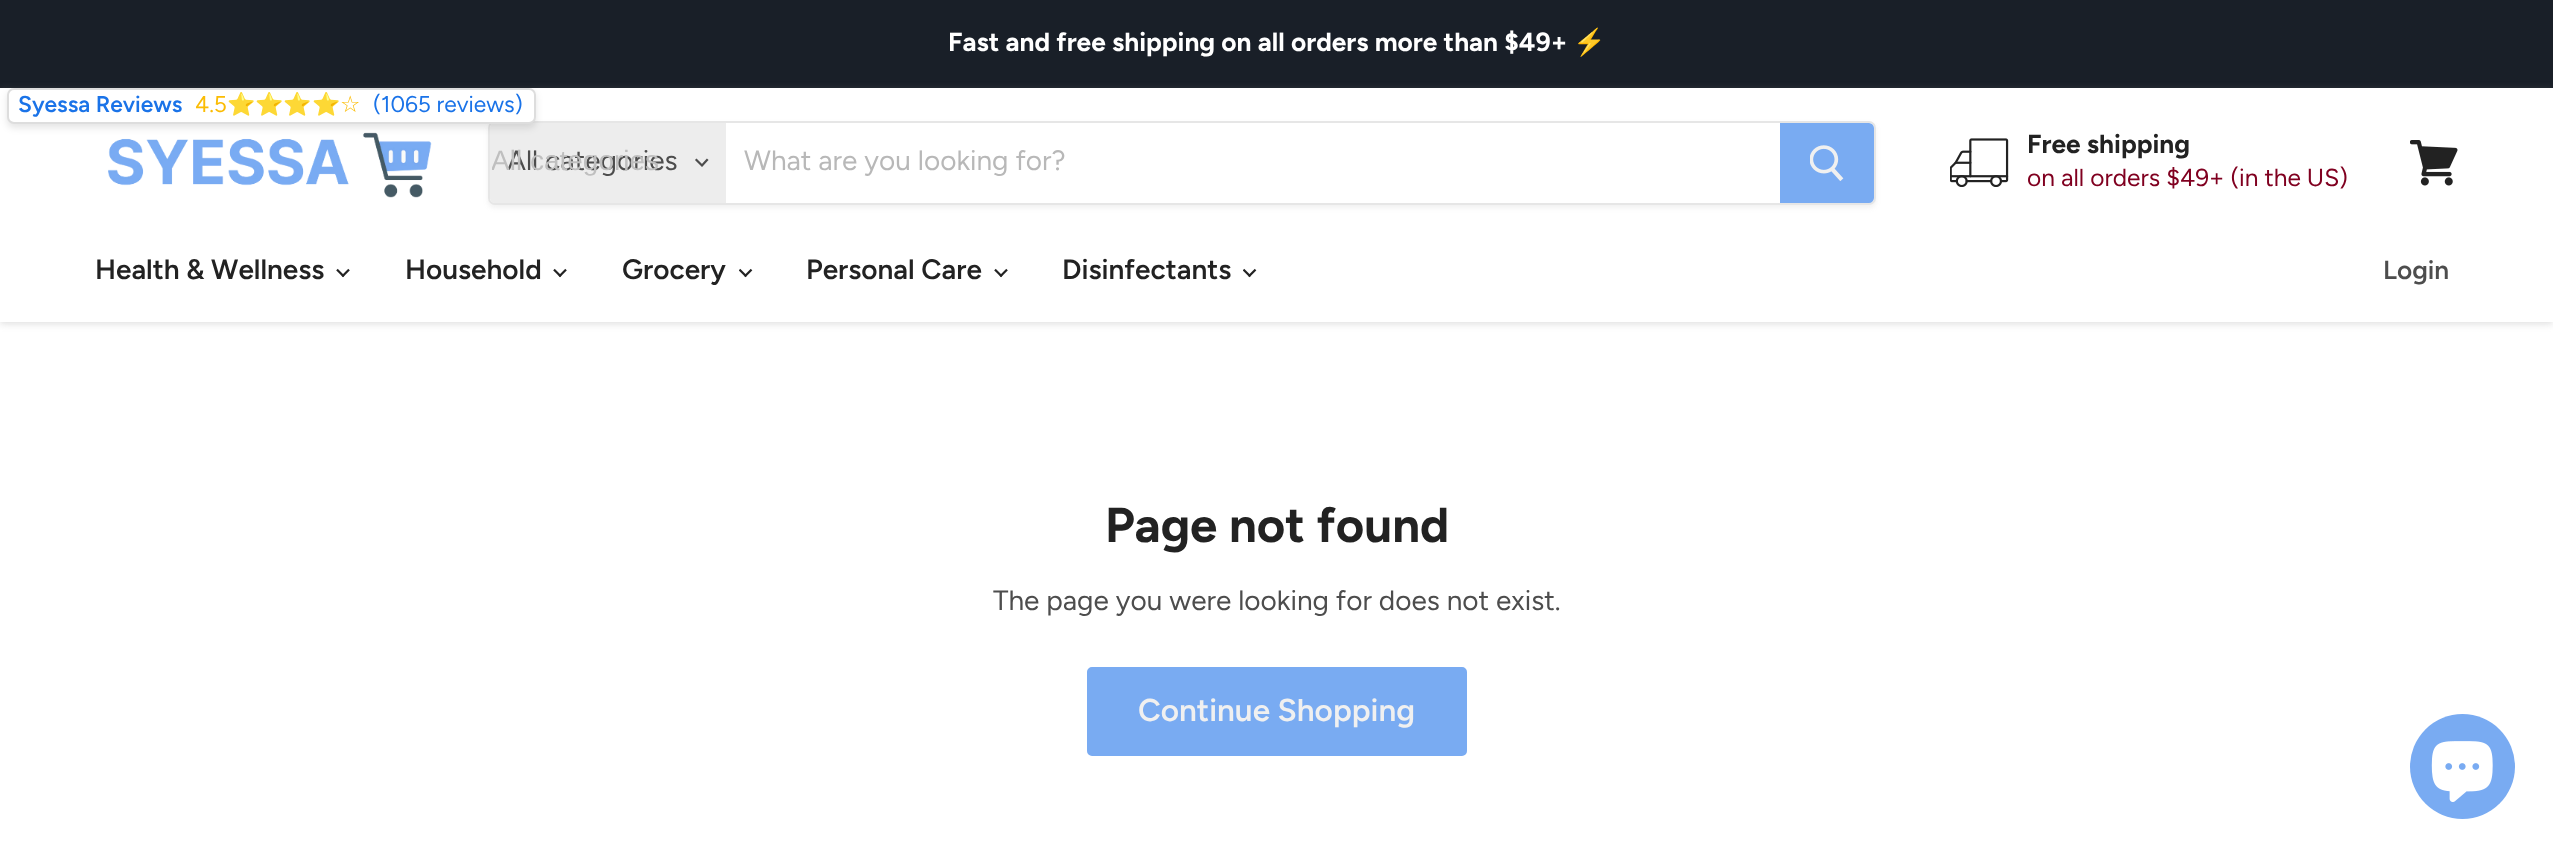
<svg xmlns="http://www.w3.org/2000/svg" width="2553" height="855">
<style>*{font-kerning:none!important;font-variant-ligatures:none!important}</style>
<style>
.a{font:bold 26.25px Figtree;fill:#fff}
.b{font:bold 26.25px Noto Color Emoji;fill:#fff}
.c{font:600 22.75px Figtree;fill:#1a73e8}
.d{font:22.75px Figtree;fill:#fbbc04}
.e{font:22.75px Noto Color Emoji;fill:#fbbc04}
.f{font:22.75px DejaVu Sans;fill:#fbbc04}
.g{font:22.75px Figtree;fill:#1a73e8}
.h{font:28px Figtree;fill:#4d4d4d}
.i{font:28px Liberation Sans;fill:#bfbfbf}
.j{font:28px Figtree;fill:#b8b8b8}
.k{font:bold 26.25px Figtree;fill:#222}
.l{font:24.5px Figtree;fill:#800020}
.m{font:600 28px Figtree;fill:#222}
.n{font:600 26.25px Figtree;fill:#4d4d4d}
.o{font:bold 49px Figtree;fill:#222}
.p{font:600 31.5px Figtree;fill:#f0f0f0}
</style>
<defs>
<clipPath id="clip1"><path d="M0 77h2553v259h-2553zm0 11h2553v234h-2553z" clip-rule="evenodd"/></clipPath>
<clipPath id="clip2"><path d="M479 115h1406v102h-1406zm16 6h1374c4 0 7 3 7 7v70c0 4-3 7-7 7h-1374c-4 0-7-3-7-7v-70c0-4 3-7 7-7z" clip-rule="evenodd"/></clipPath>
<clipPath id="clip3"><path d="M492 145h233v34H492z"/></clipPath>
</defs>
<rect width="100%" height="100%" fill="#fff"/>
<path fill="#191f28" d="M0 0h2553v88H0z"/>
<g clip-path="url(#clip1)">
<path fill="#80808040" filter="blur(3.5px)" d="M0 89h2553v235H0z"/>
</g>
<image href="1.png" x="108" y="132" width="324" height="66"/>
<g clip-path="url(#clip2)">
<rect fill="#8080801c" filter="blur(2.5px)" x="488" y="124" width="1388" height="84" rx="7"/>
</g>
<rect fill="none" stroke="#80808033" stroke-width="2" x="489" y="122" width="1386" height="82" rx="6"/>
<path fill="#ededed" d="M495 123h231v80h-231c-3 0-5-2-5-5v-70c0-3 2-5 5-5z"/>
<rect fill="#0000001a" filter="blur(3.5px)" x="7" y="91" width="529" height="37" rx="7"/>
<rect fill="#fff" stroke="#ddd" stroke-width="2" x="8" y="89" width="527" height="34" rx="6"/>
<path fill="none" stroke="#4d4d4d" stroke-width="2.2" stroke-linecap="square" d="M702 165.5l5-5.5m-5 5.5l-5.5-5.5"/>
<path fill="#79abf2" stroke="#79abf2" stroke-width="2" d="M1781 124h88c2 0 4 2 4 4v70c0 2-2 4-4 4h-88z"/>
<image href="2.png" x="1810" y="145" width="34" height="36"/>
<image href="3.png" x="1950" y="138" width="59" height="49"/>
<image href="4.png" x="2410" y="140" width="48" height="46"/>
<image href="5.png" x="336" y="268" width="14" height="10"/>
<image href="5.png" x="553" y="268" width="14" height="10"/>
<image href="6.png" x="739" y="268" width="14" height="10"/>
<image href="5.png" x="994" y="268" width="14" height="10"/>
<image href="6.png" x="1243" y="268" width="14" height="10"/>
<rect fill="#79abf2" stroke="#79abf2" stroke-width="2" x="1088" y="668" width="378" height="87" rx="4"/>
<circle fill="#79abf2" cx="2462.5" cy="766.5" r="52.5"/>
<image href="7.png" x="2431" y="741" width="62" height="61"/>
<text class="a" x="948" y="51">Fast and free shipping on all orders more than $49+</text>
<text class="b" x="1573" y="51">⚡</text>
<text class="c" x="18" y="112">Syessa Reviews</text>
<text class="d" x="195" y="112">4.5</text>
<text class="e" x="227" y="112">⭐⭐⭐⭐</text>
<text class="f" x="340" y="112">☆</text>
<text class="g" x="373" y="112">(1065 reviews)</text>
<text class="h" x="507" y="170">All categories</text>
<g clip-path="url(#clip3)">
<text class="i" x="491" y="170">All categories</text>
</g>
<text class="j" x="744" y="170">What are you looking for?</text>
<text class="k" x="2027" y="153">Free shipping</text>
<text class="l" x="2027" y="186">on all orders $49+ (in the US)</text>
<text class="m" x="95" y="279">Health &amp; Wellness</text>
<text class="m" x="405" y="279">Household</text>
<text class="m" x="622" y="279">Grocery</text>
<text class="m" x="806" y="279">Personal Care</text>
<text class="m" x="1062" y="279">Disinfectants</text>
<text class="n" x="2383" y="279">Login</text>
<text class="o" x="1105" y="542">Page not found</text>
<text class="h" x="993" y="610">The page you were looking for does not exist.</text>
<text class="p" x="1138" y="721">Continue Shopping</text>
</svg>
